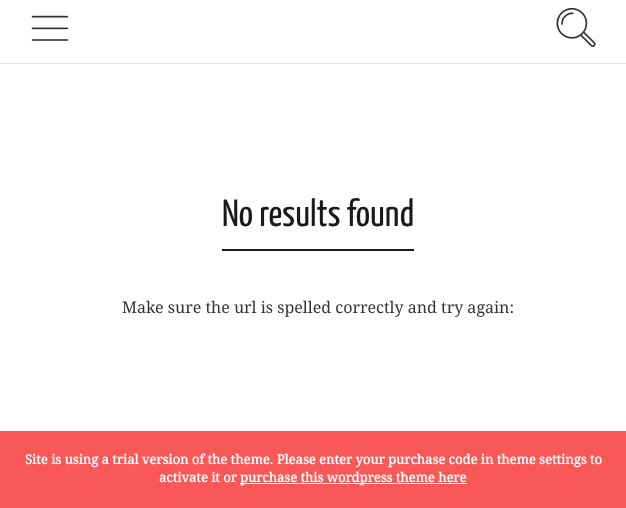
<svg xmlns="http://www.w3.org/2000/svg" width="626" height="508">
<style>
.a{font:200 38px Yanone Kaffeesatz;fill:#1a1a1a}
.b{font:16px Droid Serif;fill:#333}
.c{font:bold 13px Droid Serif;fill:#fff}
</style>
<rect width="100%" height="100%" fill="#fff"/>
<image href="1.png" x="31" y="15" width="38" height="26"/>
<image href="2.png" x="556" y="7" width="40" height="40"/>
<path fill="#e6e6e6" d="M0 63h626v1H0z"/>
<path fill="#1a1a1a" d="M222 249h192v2H222z"/>
<path fill="#f95858" d="M0 431h626v77H0z"/>
<path fill="#fff" d="M240 483h227v1H240z"/>
<text class="a" x="222" y="226">No results found</text>
<text class="b" x="122" y="313">Make sure the url is spelled correctly and try again:</text>
<text class="c" x="25" y="464">Site is using a trial version of the theme. Please enter your purchase code in theme settings to</text>
<text class="c" x="159" y="482">activate it or</text>
<text class="c" x="240" y="482">purchase this wordpress theme here</text>
</svg>
